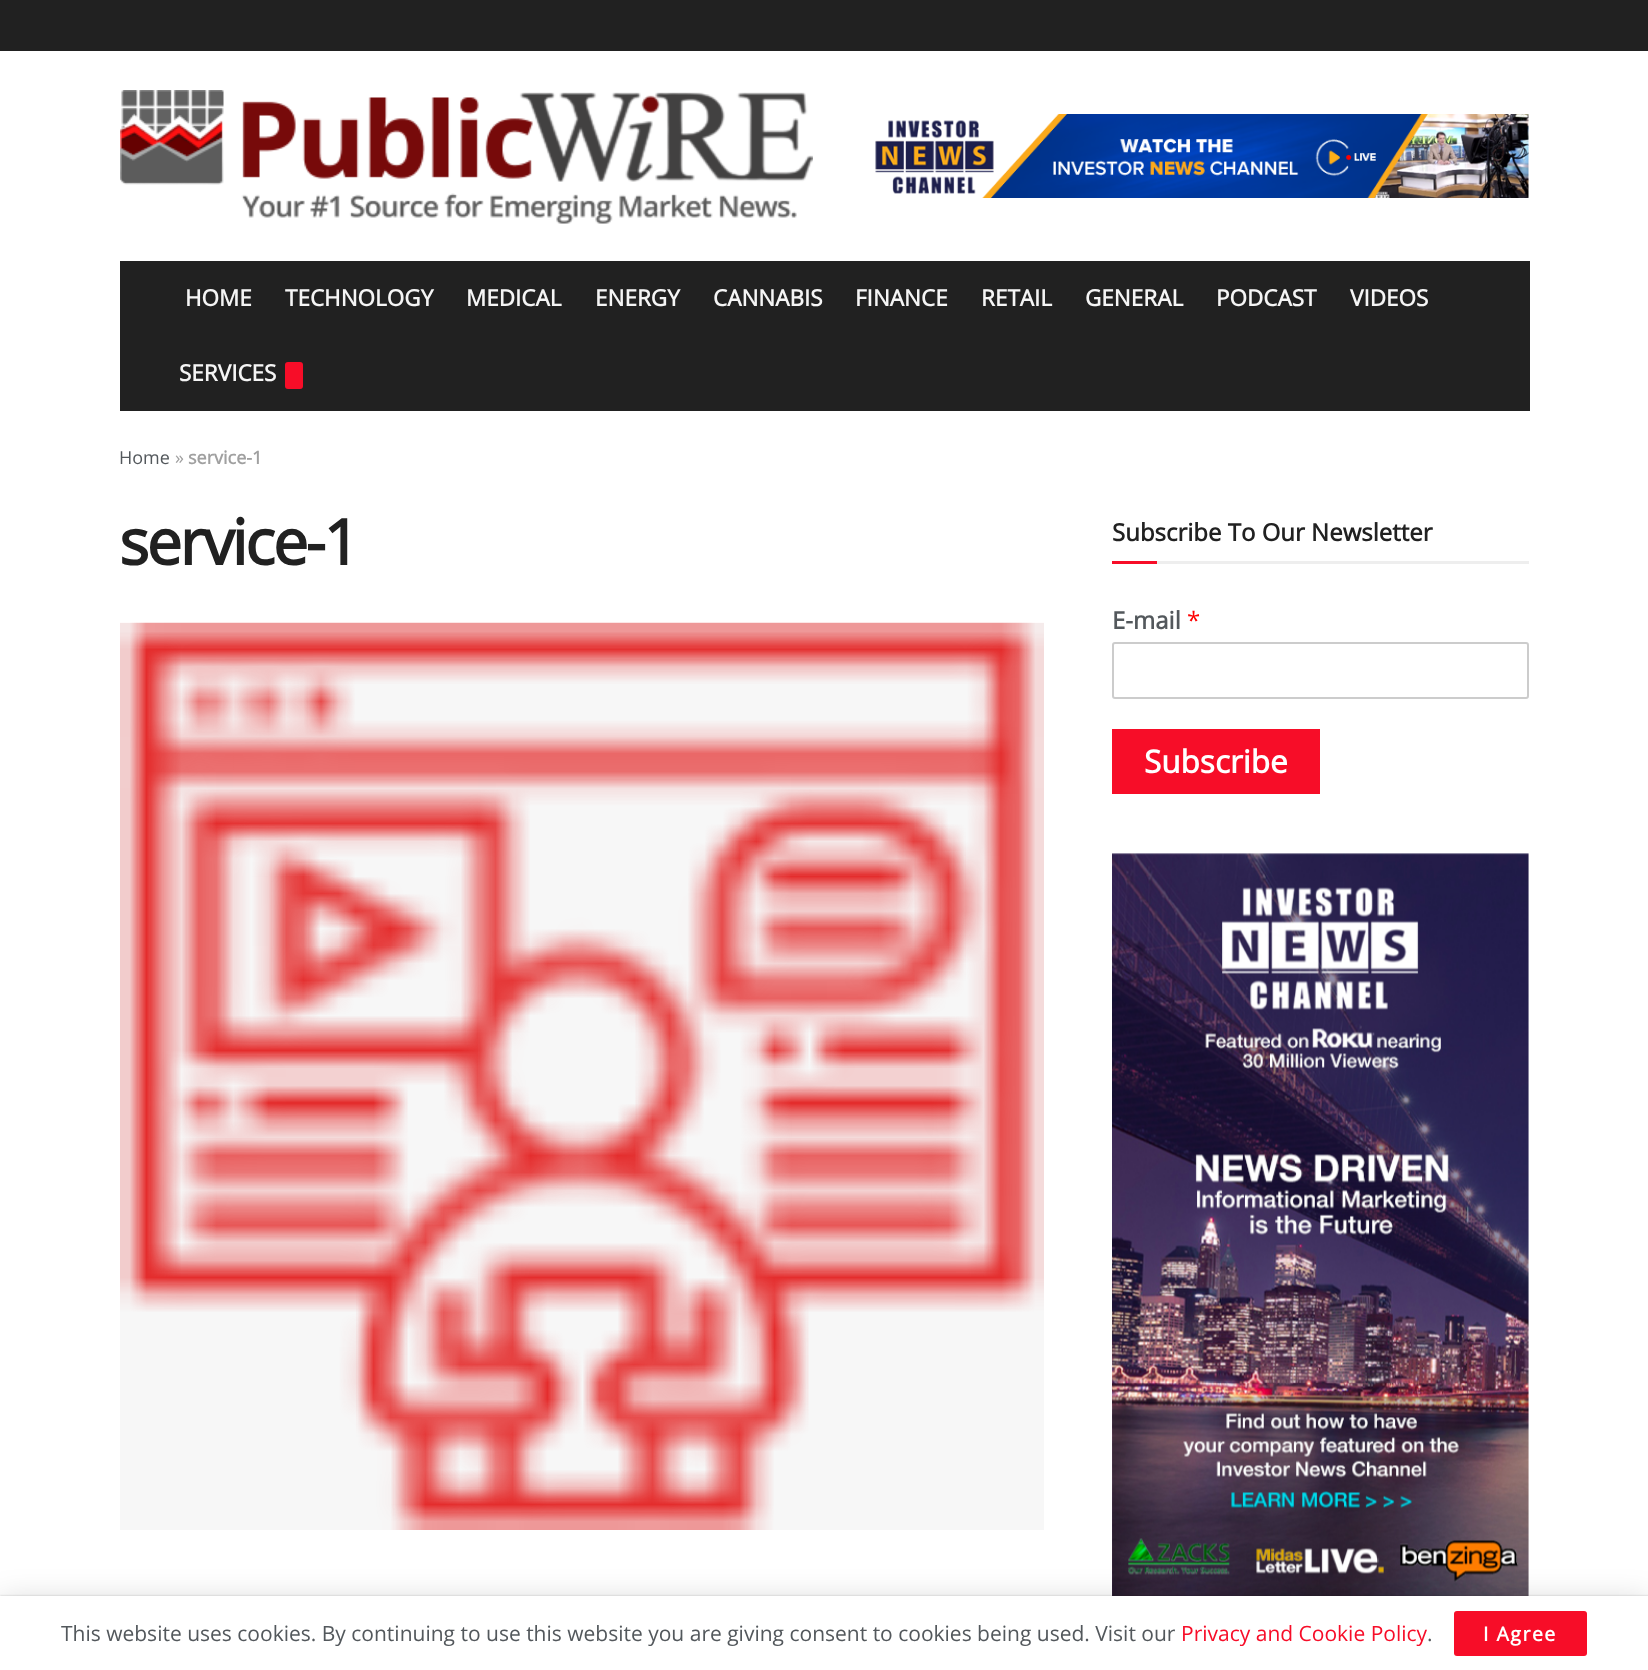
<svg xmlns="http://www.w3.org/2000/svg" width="1648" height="1670">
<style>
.a{font:bold 22.5px Open Sans;fill:#f5f5f5}
.b{font:18px Open Sans;fill:#53585c}
.c{font:18px Open Sans;fill:#a0a0a0}
.d{font:bold 18px Open Sans;fill:#a0a0a0}
.e{font:bold 63px Open Sans;letter-spacing:-2.5px;fill:#212121}
.f{font:bold 24px Open Sans;fill:#212121}
.g{font:bold 24px Open Sans;fill:#53585c}
.h{font:24px Open Sans;fill:#f00}
.i{font:bold 31.5px Open Sans;fill:#fff}
.j{font:21px Open Sans;fill:#53585c}
.k{font:21px Open Sans;fill:#f70d28}
.l{font:bold 19.5px Open Sans;letter-spacing:1.5px;fill:#fff}
</style>
<rect width="100%" height="100%" fill="#fff"/>
<path fill="#212121" d="M0 0h1648v51H0z"/>
<image href="1.png" x="120" y="90" width="693" height="134"/>
<image href="2.png" x="875" y="114" width="654" height="84"/>
<path fill="#212121" d="M120 261h1410v150H120z"/>
<rect fill="#f70d28" x="285" y="362" width="18" height="27" rx="3"/>
<path fill="#f7f7f7" d="M120 623h924v907H120z"/>
<image href="3.png" x="120" y="622" width="924" height="908"/>
<path fill="#eee" d="M1157 561h372v3H1157z"/>
<path fill="#f70d28" d="M1112 561h45v3H1112z"/>
<rect fill="none" stroke="#ccc" stroke-width="2" x="1113" y="643" width="415" height="55" rx="2"/>
<path fill="#f70d28" d="M1112 729h208v65H1112z"/>
<image href="4.png" x="1112" y="853" width="417" height="743"/>
<path fill="#00000026" filter="blur(15px)" d="M0 1599h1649v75H0z"/>
<path fill="#00000033" filter="blur(1px)" d="M0 1596h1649v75H0z"/>
<path fill="#fff" d="M0 1596h1648v74H0z"/>
<rect fill="#f70d28" x="1454" y="1611" width="133" height="45" rx="3"/>
<text class="a" x="185" y="306">HOME</text>
<text class="a" x="285" y="306">TECHNOLOGY</text>
<text class="a" x="466" y="306">MEDICAL</text>
<text class="a" x="595" y="306">ENERGY</text>
<text class="a" x="713" y="306">CANNABIS</text>
<text class="a" x="855" y="306">FINANCE</text>
<text class="a" x="981" y="306">RETAIL</text>
<text class="a" x="1085" y="306">GENERAL</text>
<text class="a" x="1216" y="306">PODCAST</text>
<text class="a" x="1350" y="306">VIDEOS</text>
<text class="a" x="179" y="381">SERVICES</text>
<text class="b" x="119" y="464">Home</text>
<text class="c" x="175" y="464">»</text>
<text class="d" x="188" y="464">service-1</text>
<text class="e" x="119" y="565">service-1</text>
<text class="f" x="1112" y="541">Subscribe To Our Newsletter</text>
<text class="g" x="1112" y="629">E-mail</text>
<text class="h" x="1187" y="629">*</text>
<text class="i" x="1144" y="773">Subscribe</text>
<text class="j" x="61" y="1641">This website uses cookies. By continuing to use this website you are giving consent to cookies being used. Visit our</text>
<text class="k" x="1181" y="1641">Privacy and Cookie Policy</text>
<text class="j" x="1427" y="1641">.</text>
<text class="l" x="1483" y="1641">I Agree</text>
</svg>
